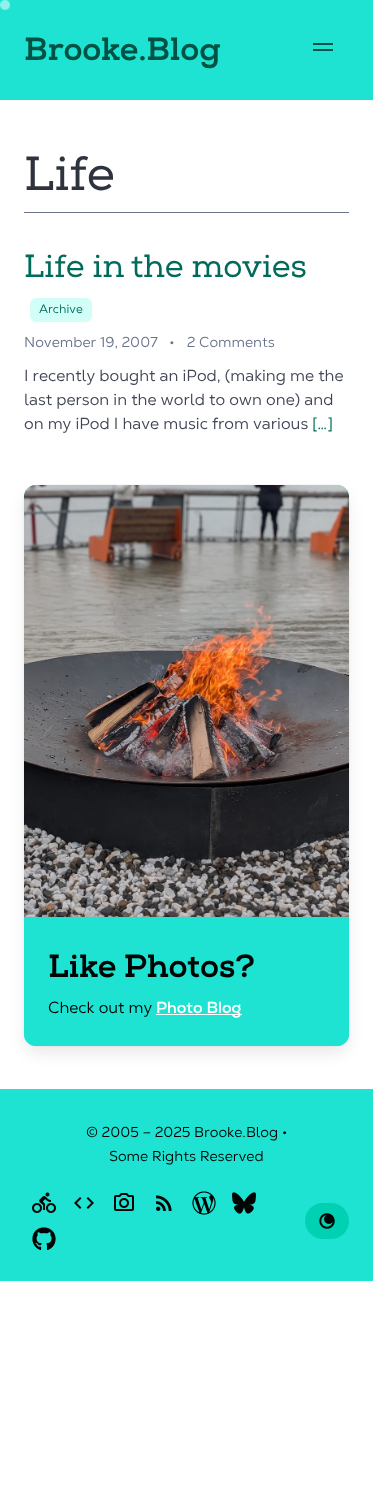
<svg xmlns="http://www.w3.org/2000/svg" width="373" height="1493">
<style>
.a{font:bold 32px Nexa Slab;fill:#005245}
.b{font:48px Nexa Slab;fill:#2e333d}
.c{font:32px Nexa Slab;fill:#006b5b}
.d{font:12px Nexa;fill:#006b5b}
.e{font:14.4px Nexa;fill:#69748c}
.f{font:16px Nexa;fill:#404654}
.g{font:16px Nexa;fill:#006b5b}
.h{font:bold 32px Nexa Slab;fill:#000504}
.i{font:16px Nexa;fill:#000504}
.j{font:16px 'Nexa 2';fill:#fff}
.k{font:14.4px Nexa;fill:#000504}
</style>
<rect width="100%" height="100%" fill="#fff"/>
<path fill="#1fe3d2" d="M0 0h373v100H0z"/>
<circle fill="#8ff1e9" cx="5" cy="5" r="5"/>
<path fill="#005245" d="M313 43h20v2H313z"/>
<path fill="#005245" d="M313 49h20v2H313z"/>
<path fill="#69748c" d="M24 212h325v1H24z"/>
<rect fill="#d1fff8" x="30" y="298" width="62" height="24" rx="6"/>
<rect fill="none" stroke="#fafafa" x="23.5" y="484.5" width="326" height="562" rx="12.5"/>
<rect fill="#090a0c1a" filter="blur(8px)" x="26" y="495" width="321" height="557" rx="10"/>
<rect fill="#1fe3d2" x="24" y="485" width="325" height="561" rx="12"/>
<image href="1.png" x="24" y="485" width="325" height="432"/>
<path fill="#1fe3d2" d="M24 925h325v109c0 6.5-5.5 12-12 12h-301c-6.5 0-12-5.5-12-12z"/>
<path fill="#fff" d="M156 1014h86v1H156z"/>
<path fill="#1fe3d2" d="M0 1089h373v192H0z"/>
<image href="2.png" x="32" y="1192" width="24" height="21"/>
<image href="3.png" x="74" y="1197" width="20" height="12"/>
<image href="4.png" x="114" y="1193" width="20" height="18"/>
<image href="5.png" x="156" y="1195" width="16" height="16"/>
<image href="6.png" x="192" y="1191" width="24" height="24"/>
<image href="7.png" x="232" y="1192" width="24" height="22"/>
<image href="8.png" x="32" y="1227" width="24" height="23"/>
<rect fill="#00d1b2" x="305" y="1203" width="44" height="36" rx="18"/>
<image href="9.png" x="319" y="1213" width="16" height="16"/>
<text class="a" x="24" y="60">Brooke.Blog</text>
<text class="b" x="24" y="190">Life</text>
<text class="c" x="24" y="277">Life in the movies</text>
<text class="d" x="39" y="313">Archive</text>
<text class="e" x="24" y="347">November 19, 2007</text>
<text class="e" x="169" y="347">•</text>
<text class="e" x="187" y="347">2 Comments</text>
<text class="f" x="24" y="381">I recently bought an iPod, (making me the</text>
<text class="f" x="24" y="405">last person in the world to own one) and</text>
<text class="f" x="24" y="429">on my iPod I have music from various</text>
<text class="g" x="312" y="429">[…]</text>
<text class="h" x="48" y="977">Like Photos?</text>
<text class="i" x="48" y="1013">Check out my</text>
<text class="j" x="156" y="1013">Photo Blog</text>
<text class="k" x="86" y="1137">© 2005 – 2025 Brooke.Blog •</text>
<text class="k" x="109" y="1161">Some Rights Reserved</text>
</svg>
